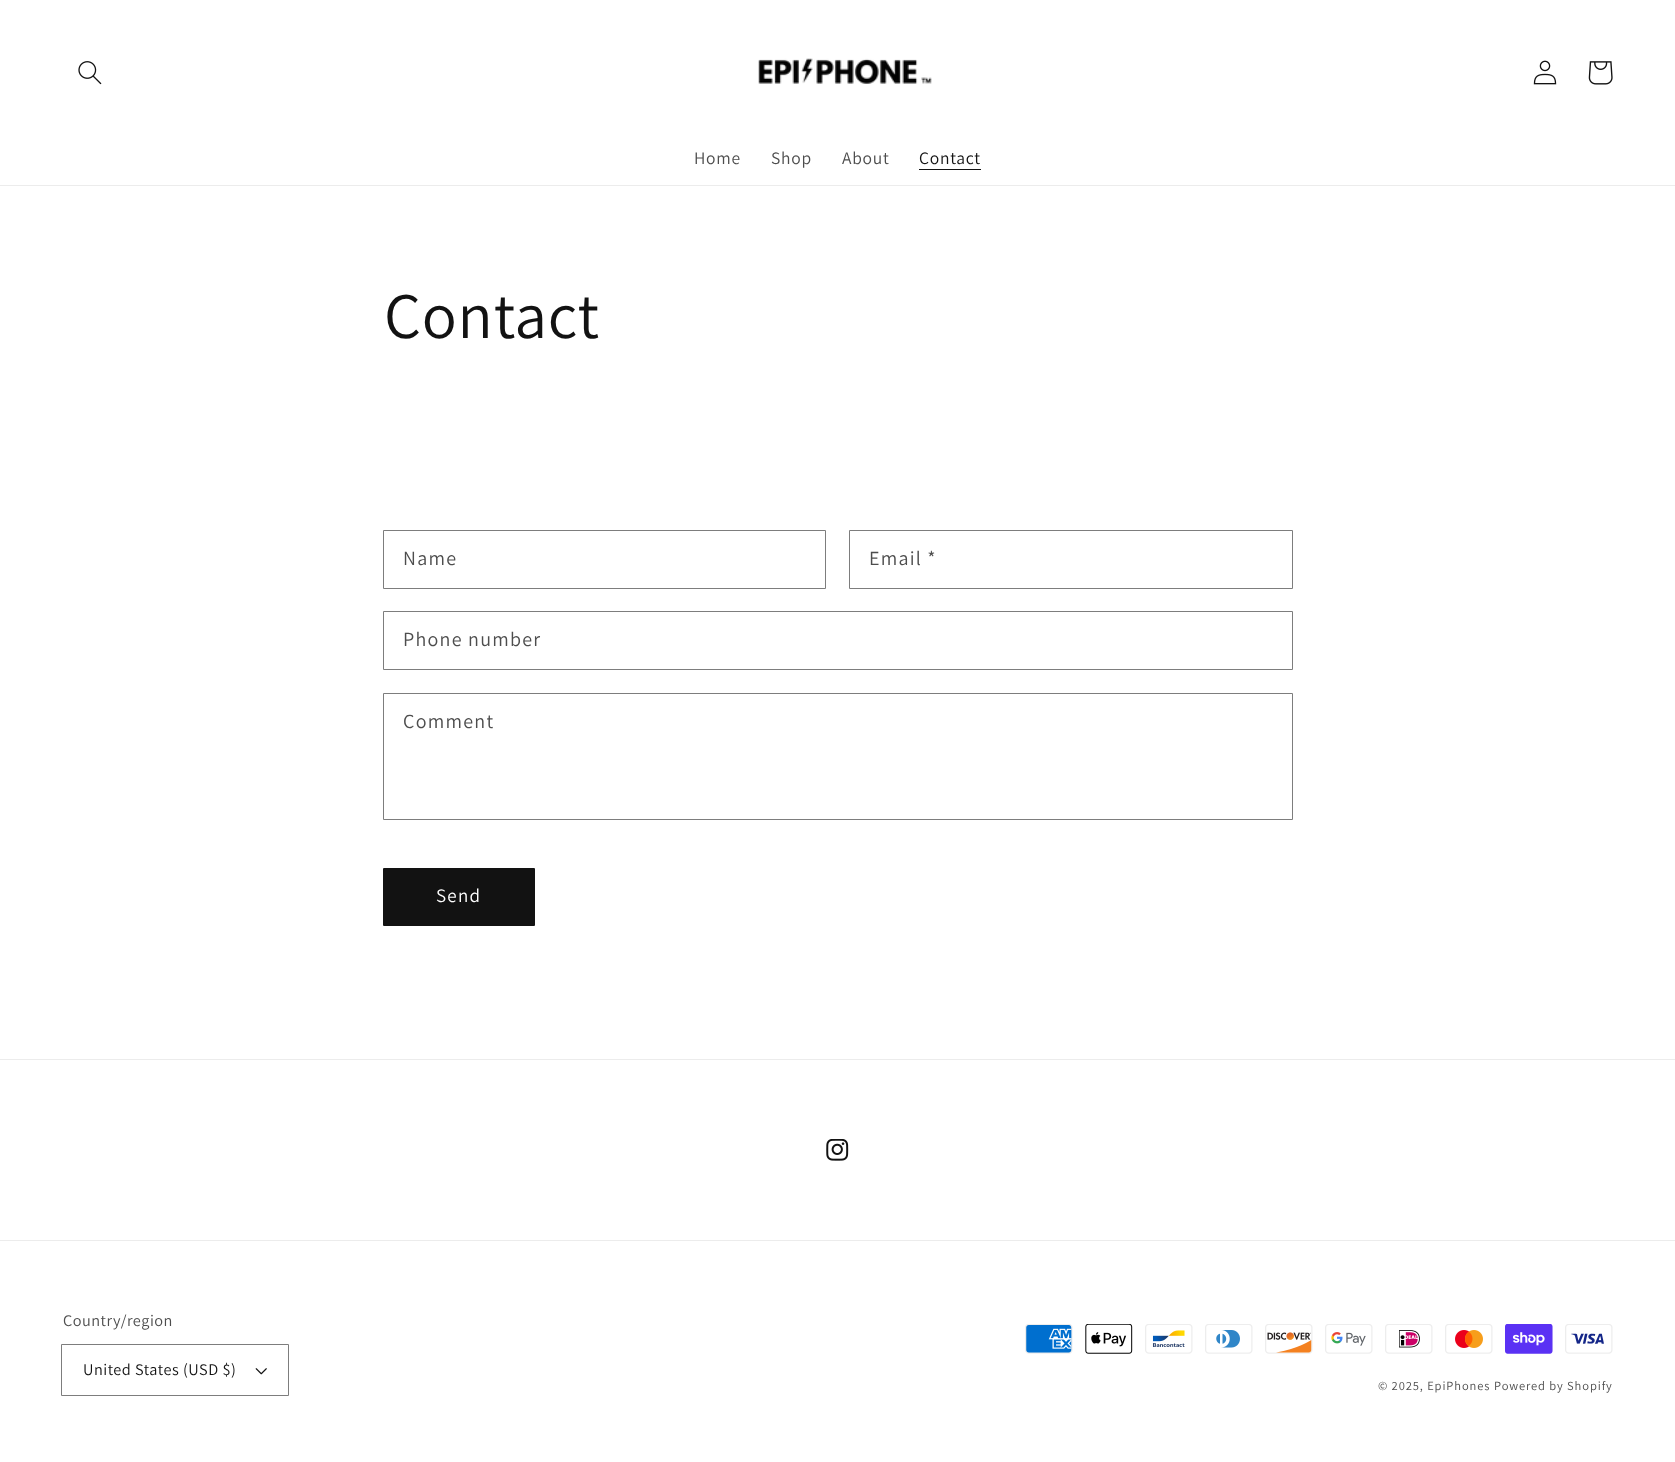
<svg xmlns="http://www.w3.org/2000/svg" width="1675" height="1462">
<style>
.a{font:17.5px Assistant;letter-spacing:0.75px;fill:#4d4d4d}
.b{font:17.5px Assistant;letter-spacing:0.75px;fill:#121212}
.c{font:65px Assistant;letter-spacing:0.75px;fill:#121212}
.d{font:20px Assistant;letter-spacing:1.25px;fill:#4d4d4d}
.e{font:19px Assistant;letter-spacing:1.25px;fill:#fff}
.f{font:16.25px Assistant;letter-spacing:0.5px;fill:#4d4d4d}
.g{font:16.25px Assistant;letter-spacing:0.5px;fill:#121212}
.h{font:12.5px Assistant;letter-spacing:0.9px;fill:#4d4d4d}
</style>
<rect width="100%" height="100%" fill="#fff"/>
<path fill="#ececec" d="M0 185h1675v1H0z"/>
<image href="1.png" x="78" y="61" width="24" height="24"/>
<image href="2.png" x="758" y="58" width="174" height="26"/>
<image href="3.png" x="1533" y="60" width="24" height="25"/>
<image href="4.png" x="1588" y="61" width="25" height="24"/>
<path fill="#121212" d="M919 169h62v1H919z"/>
<path fill="none" stroke="#7d7d7d" d="M383.5 530.5h442v58H383.5z"/>
<path fill="none" stroke="#7d7d7d" d="M849.5 530.5h443v58H849.5z"/>
<path fill="none" stroke="#7d7d7d" d="M383.5 611.5h909v58H383.5z"/>
<path fill="none" stroke="#7d7d7d" d="M383.5 693.5h909v126H383.5z"/>
<path fill="none" stroke="#121212" d="M383.5 868.5h151v57H383.5z"/>
<path fill="#121212" d="M384 869h150v56H384z"/>
<path fill="#ececec" d="M0 1059h1675v1H0z"/>
<image href="5.png" x="826" y="1139" width="23" height="22"/>
<path fill="#ececec" d="M0 1240h1675v1H0z"/>
<path fill="none" stroke="#7d7d7d" d="M61.5 1344.5h227v51H61.5z"/>
<image href="6.png" x="255" y="1368" width="12" height="7"/>
<image href="7.png" x="1025" y="1324" width="48" height="30"/>
<image href="8.png" x="1085" y="1324" width="48" height="30"/>
<image href="9.png" x="1145" y="1324" width="48" height="30"/>
<image href="10.png" x="1205" y="1324" width="48" height="30"/>
<image href="11.png" x="1265" y="1324" width="48" height="30"/>
<image href="12.png" x="1325" y="1324" width="48" height="30"/>
<image href="13.png" x="1385" y="1324" width="48" height="30"/>
<image href="14.png" x="1445" y="1324" width="48" height="30"/>
<image href="15.png" x="1505" y="1324" width="48" height="30"/>
<image href="16.png" x="1565" y="1324" width="48" height="30"/>
<text class="a" x="694" y="164">Home</text>
<text class="a" x="771" y="164">Shop</text>
<text class="a" x="842" y="164">About</text>
<text class="b" x="919" y="164">Contact</text>
<text class="c" x="384" y="338">Contact</text>
<text class="d" x="403" y="565">Name</text>
<text class="d" x="869" y="565">Email *</text>
<text class="d" x="403" y="646">Phone number</text>
<text class="d" x="403" y="728">Comment</text>
<text class="e" x="436" y="902">Send</text>
<text class="f" x="63" y="1326">Country/region</text>
<text class="g" x="83" y="1375">United States (USD $)</text>
<text class="h" x="1378" y="1390">© 2025, EpiPhones</text>
<text class="h" x="1494" y="1390">Powered by Shopify</text>
</svg>
